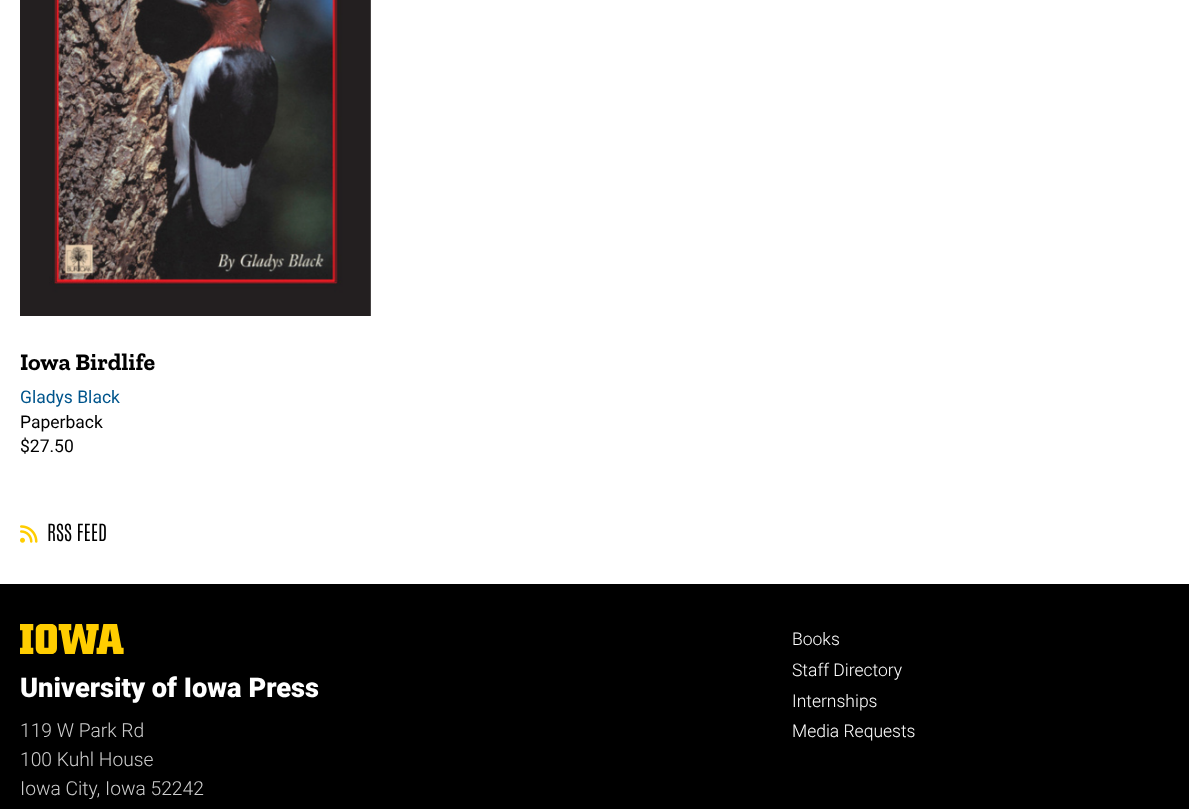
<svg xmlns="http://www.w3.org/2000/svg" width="1189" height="809">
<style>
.a{font:bold 24px Zilla Slab;fill:#000}
.b{font:17.5px Roboto;fill:#00558c}
.c{font:17.5px Roboto;fill:#000}
.d{font:300 20px Antonio;fill:#000}
.e{font:900 27.25px Roboto;fill:#fff}
.f{font:300 19.25px Roboto;fill:#ccc}
.g{font:300 17.5px Roboto;fill:#fff}
</style>
<rect width="100%" height="100%" fill="#fff"/>
<image href="1.png" x="20" y="0" width="351" height="316"/>
<image href="2.png" x="20" y="525" width="18" height="18"/>
<path fill="#000" d="M0 584h1189v225H0z"/>
<image href="3.png" x="20" y="624" width="104" height="30"/>
<text class="a" x="20" y="370">Iowa Birdlife</text>
<text class="b" x="20" y="403">Gladys Black</text>
<text class="c" x="20" y="428">Paperback</text>
<text class="c" x="20" y="452">$27.50</text>
<text class="d" x="47" y="541">RSS FEED</text>
<text class="e" x="20" y="697">University of Iowa Press</text>
<text class="f" x="20" y="737">119 W Park Rd</text>
<text class="f" x="20" y="766">100 Kuhl House</text>
<text class="f" x="20" y="795">Iowa City, Iowa 52242</text>
<text class="g" x="792" y="645">Books</text>
<text class="g" x="792" y="676">Staff Directory</text>
<text class="g" x="792" y="707">Internships</text>
<text class="g" x="792" y="737">Media Requests</text>
</svg>
